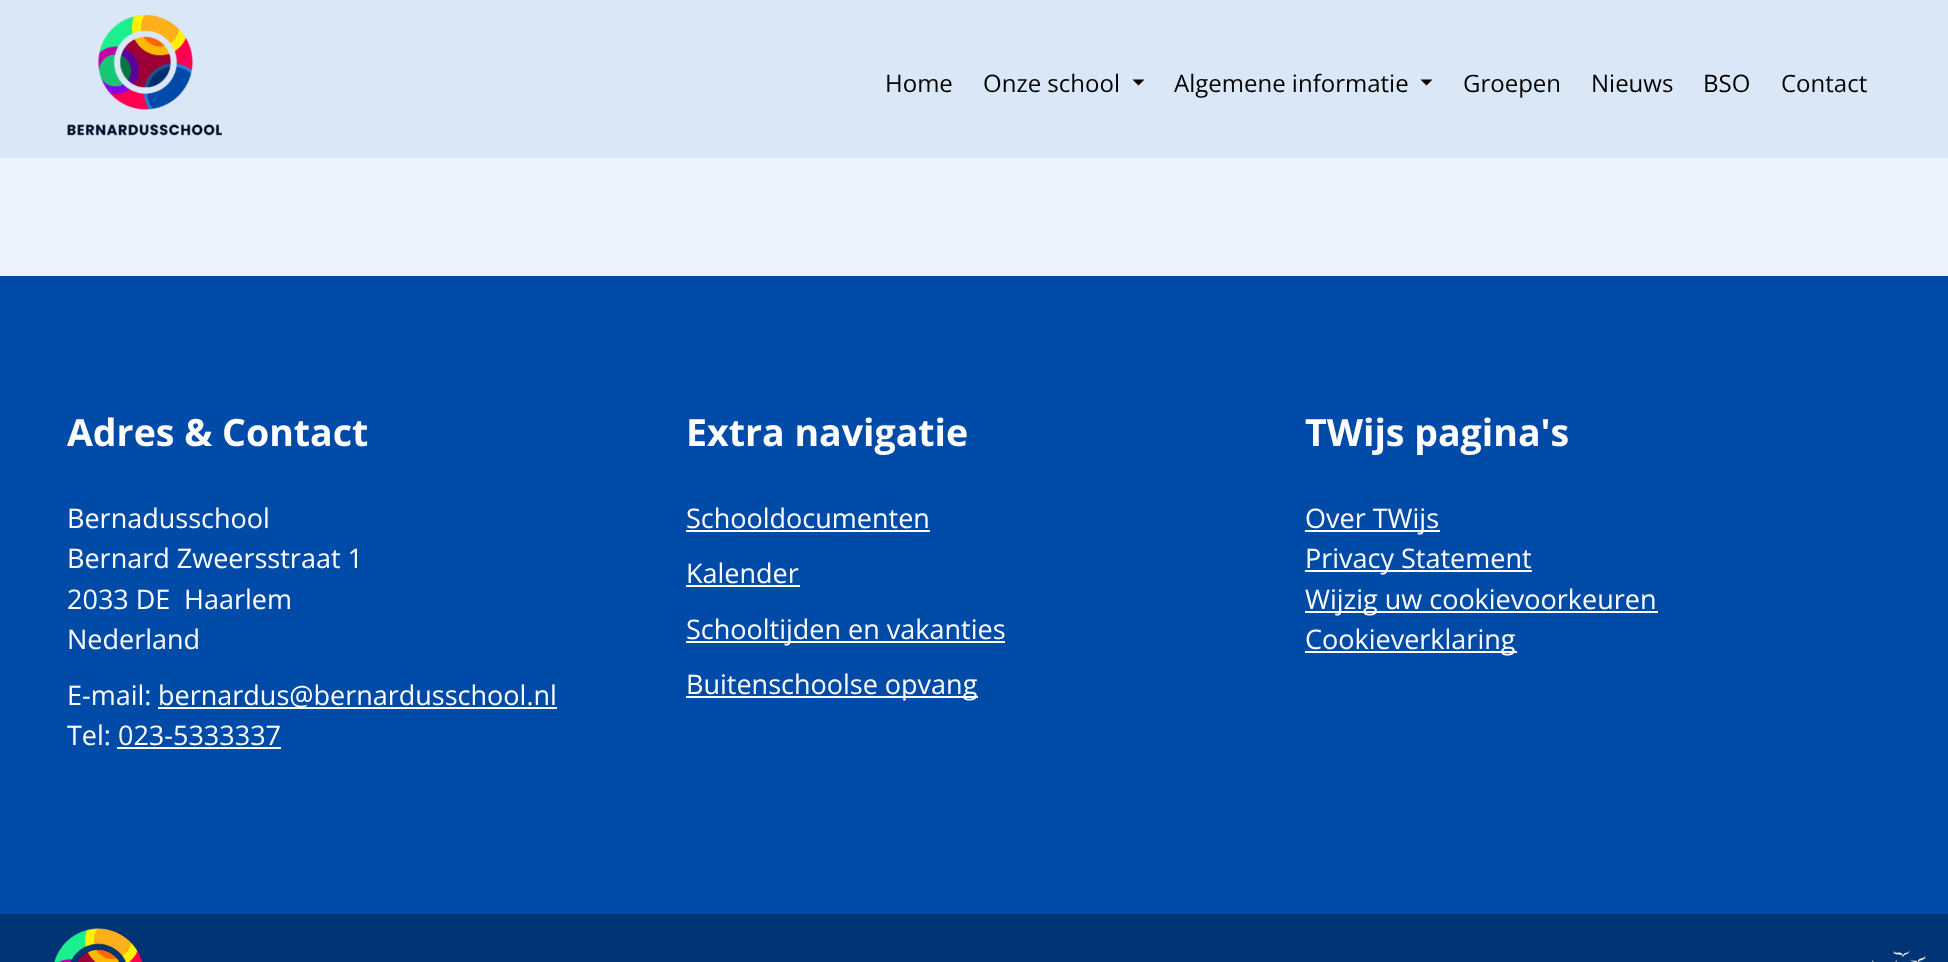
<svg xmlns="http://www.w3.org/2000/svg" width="1948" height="962">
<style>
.a{font:24px Open Sans;fill:#000}
.b{font:bold 37.5px Open Sans;fill:#fff}
.c{font:27px Open Sans;fill:#fff}
</style>
<rect width="100%" height="100%" fill="#ecf3fb"/>
<path fill="#d9e7f7" d="M0 0h1948v158H0z"/>
<image href="1.png" x="67" y="15" width="155" height="121"/>
<path fill="#000" d="M1132.5 79.5h12l-6 6z"/>
<path fill="#000" d="M1420.5 79.5h12l-6 6z"/>
<path fill="#004ba8" d="M0 276h1948v638H0z"/>
<path fill="#fff" d="M158 707h399v2H158z"/>
<path fill="#fff" d="M117 747h164v2H117z"/>
<path fill="#fff" d="M686 530h244v2H686z"/>
<path fill="#fff" d="M686 585h114v2H686z"/>
<path fill="#fff" d="M686 641h319v2H686z"/>
<path fill="#fff" d="M686 696h292v2H686z"/>
<path fill="#fff" d="M1305 530h135v2H1305z"/>
<path fill="#fff" d="M1305 570h227v2H1305z"/>
<path fill="#fff" d="M1305 611h353v2H1305z"/>
<path fill="#fff" d="M1305 651h212v2H1305z"/>
<path fill="#003475" d="M0 914h1948v48H0z"/>
<image href="2.png" x="54" y="928" width="89" height="34"/>
<image href="3.png" x="1872" y="951" width="54" height="11"/>
<text class="a" x="885" y="92">Home</text>
<text class="a" x="983" y="92">Onze school</text>
<text class="a" x="1174" y="92">Algemene informatie</text>
<text class="a" x="1463" y="92">Groepen</text>
<text class="a" x="1591" y="92">Nieuws</text>
<text class="a" x="1703" y="92">BSO</text>
<text class="a" x="1781" y="92">Contact</text>
<text class="b" x="67" y="446">Adres &amp; Contact</text>
<text class="c" x="67" y="528">Bernadusschool</text>
<text class="c" x="67" y="568">Bernard Zweersstraat 1</text>
<text class="c" x="67" y="609">2033 DE</text>
<text class="c" x="184" y="609">Haarlem</text>
<text class="c" x="67" y="649">Nederland</text>
<text class="c" x="67" y="705">E-mail:</text>
<text class="c" x="158" y="705">bernardus@bernardusschool.nl</text>
<text class="c" x="67" y="745">Tel: 023-5333337</text>
<text class="b" x="686" y="446">Extra navigatie</text>
<text class="c" x="686" y="528">Schooldocumenten</text>
<text class="c" x="686" y="583">Kalender</text>
<text class="c" x="686" y="639">Schooltijden en vakanties</text>
<text class="c" x="686" y="694">Buitenschoolse opvang</text>
<text class="b" x="1305" y="446">TWijs pagina's</text>
<text class="c" x="1305" y="528">Over TWijs</text>
<text class="c" x="1305" y="568">Privacy Statement</text>
<text class="c" x="1305" y="609">Wijzig uw cookievoorkeuren</text>
<text class="c" x="1305" y="649">Cookieverklaring</text>
</svg>
